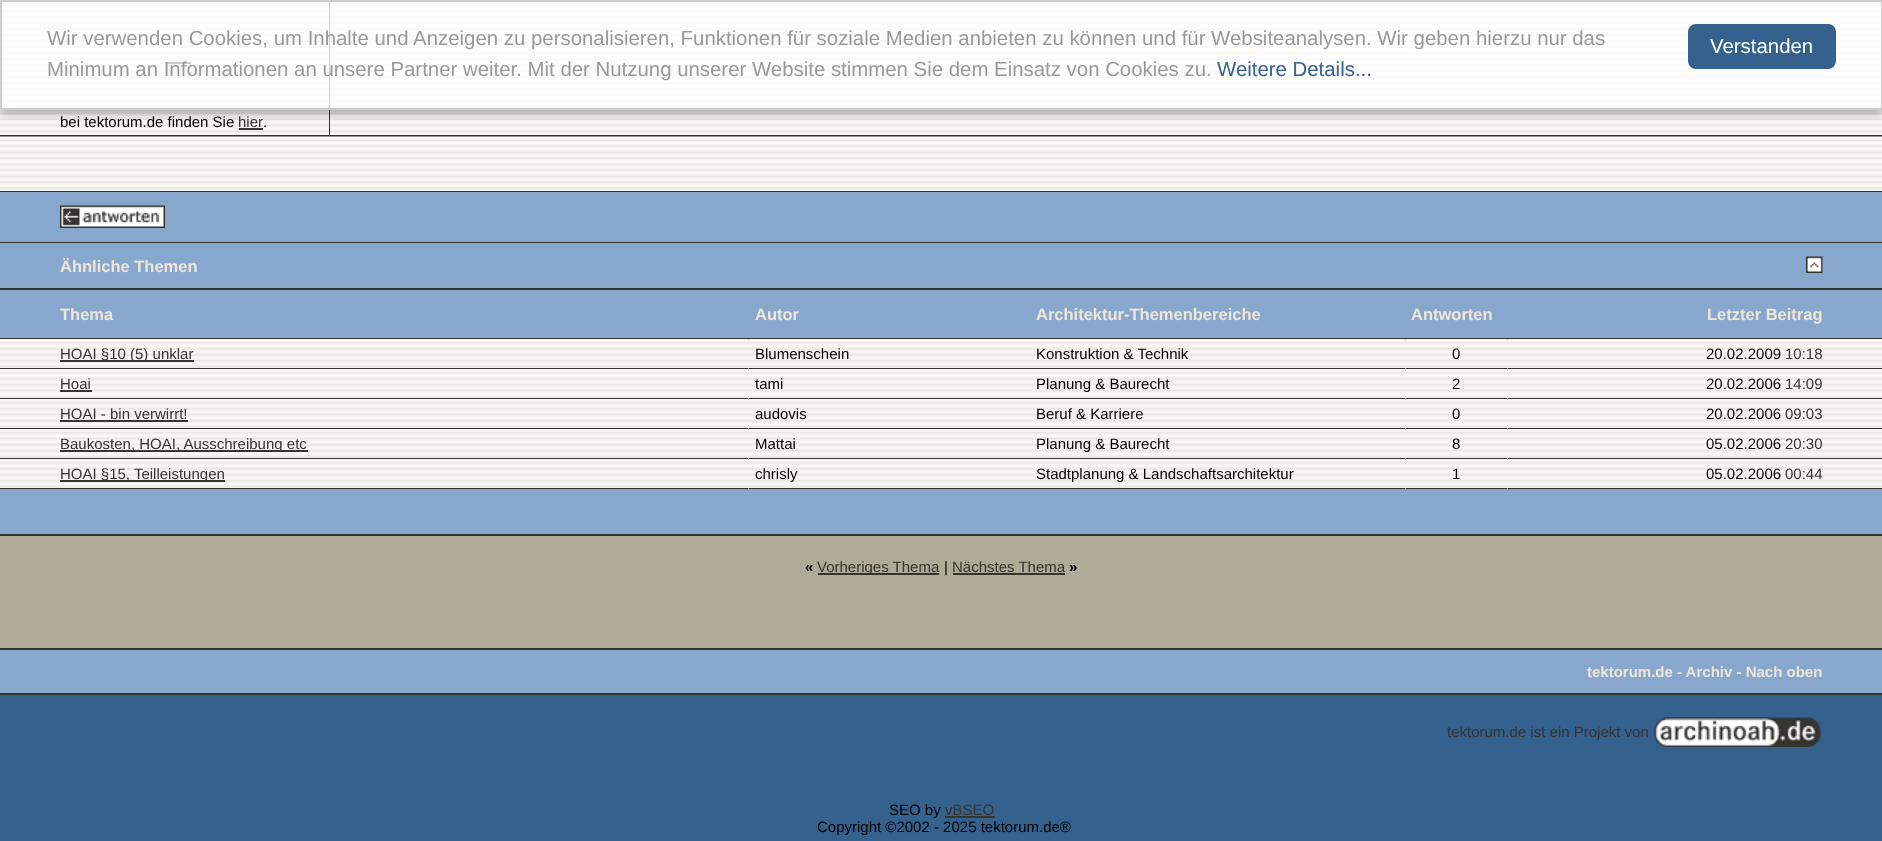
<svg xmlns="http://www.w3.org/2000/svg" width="1882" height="841">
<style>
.a{font:20.4px Liberation Sans;fill:#999}
.b{font:20.4px Liberation Sans;fill:#35618e}
.c{font:20.4px Liberation Sans;fill:#fff}
.d{font:15px Liberation Sans;fill:#000}
.e{font:15px Liberation Sans;fill:#35342f}
.f{font:bold 16.5px Liberation Sans;fill:#efe6d8}
.g{font:bold 15px Liberation Sans;fill:#000}
.h{font:bold 15px Liberation Sans;fill:#efe6d8}
</style>
<defs>
<clipPath id="clip1"><path d="M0 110h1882v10H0z"/></clipPath>
</defs>
<rect width="100%" height="100%" fill="#35618e"/>
<image href="1.png" x="0" y="2" width="1882" height="133"/>
<path fill="#35342f" d="M329 0h1v137H329z"/>
<path fill="#35342f" d="M167 62h24v2H167z"/>
<image href="2.png" x="330" y="2" width="1" height="133"/>
<g clip-path="url(#clip1)">
<path fill="#0000004d" filter="blur(4px)" d="M0 5h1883v109H0z"/>
</g>
<path fill="#ffffffbf" stroke="#ccc" stroke-width="2" d="M1 1h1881v108H1z"/>
<rect fill="#35618e" x="1688" y="24" width="148" height="45" rx="8"/>
<path fill="#35342f" d="M0 135h1882v2H0z"/>
<path fill="#35342f" d="M239 128h24v2H239z"/>
<image href="3.png" x="0" y="136" width="1882" height="55"/>
<path fill="#35342f" d="M0 191h1882v1H0z"/>
<path fill="#87a8cc" d="M0 192h1882v50H0z"/>
<path fill="#35342f" d="M0 242h1882v1H0z"/>
<image href="4.png" x="60" y="205" width="105" height="23"/>
<image href="5.png" x="0" y="340" width="1508" height="148"/>
<path fill="#87a8cc" d="M0 243h1882v45H0z"/>
<path fill="#35342f" d="M0 288h1882v2H0z"/>
<image href="6.png" x="1806" y="256" width="17" height="17"/>
<path fill="#87a8cc" d="M0 290h1882v48H0z"/>
<path fill="#35342f" d="M0 338h749v2H0z"/>
<path fill="#35342f" d="M749 338h280v1H749z"/>
<path fill="#35342f" d="M1029 338h479v2H1029z"/>
<path fill="#35342f" d="M1508 338h374v1H1508z"/>
<image href="7.png" x="0" y="339" width="749" height="1"/>
<path fill="#35342f" d="M0 368h749v2H0z"/>
<path fill="#35342f" d="M60 360h134v2H60z"/>
<image href="8.png" x="748" y="339" width="281" height="30"/>
<path fill="#35342f" d="M749 368h280v1H749z"/>
<image href="9.png" x="1029" y="339" width="377" height="1"/>
<path fill="#35342f" d="M1029 368h377v2H1029z"/>
<image href="10.png" x="1405" y="339" width="103" height="30"/>
<path fill="#35342f" d="M1406 368h102v2H1406z"/>
<image href="11.png" x="1507" y="339" width="375" height="30"/>
<path fill="#35342f" d="M1508 368h374v1H1508z"/>
<image href="7.png" x="0" y="369" width="749" height="1"/>
<path fill="#35342f" d="M0 398h749v2H0z"/>
<path fill="#35342f" d="M60 390h32v2H60z"/>
<image href="8.png" x="748" y="369" width="281" height="30"/>
<path fill="#35342f" d="M749 398h280v1H749z"/>
<image href="9.png" x="1029" y="369" width="377" height="1"/>
<path fill="#35342f" d="M1029 398h377v2H1029z"/>
<image href="10.png" x="1405" y="369" width="103" height="30"/>
<path fill="#35342f" d="M1406 398h102v2H1406z"/>
<image href="11.png" x="1507" y="369" width="375" height="30"/>
<path fill="#35342f" d="M1508 398h374v1H1508z"/>
<image href="7.png" x="0" y="399" width="749" height="1"/>
<path fill="#35342f" d="M0 428h749v2H0z"/>
<path fill="#35342f" d="M60 420h128v2H60z"/>
<image href="8.png" x="748" y="399" width="281" height="30"/>
<path fill="#35342f" d="M749 428h280v1H749z"/>
<image href="9.png" x="1029" y="399" width="377" height="1"/>
<path fill="#35342f" d="M1029 428h377v2H1029z"/>
<image href="10.png" x="1405" y="399" width="103" height="30"/>
<path fill="#35342f" d="M1406 428h102v2H1406z"/>
<image href="11.png" x="1507" y="399" width="375" height="30"/>
<path fill="#35342f" d="M1508 428h374v1H1508z"/>
<image href="7.png" x="0" y="429" width="749" height="1"/>
<path fill="#35342f" d="M0 458h749v2H0z"/>
<path fill="#35342f" d="M60 450h248v2H60z"/>
<image href="8.png" x="748" y="429" width="281" height="30"/>
<path fill="#35342f" d="M749 458h280v1H749z"/>
<image href="9.png" x="1029" y="429" width="377" height="1"/>
<path fill="#35342f" d="M1029 458h377v2H1029z"/>
<image href="10.png" x="1405" y="429" width="103" height="30"/>
<path fill="#35342f" d="M1406 458h102v2H1406z"/>
<image href="11.png" x="1507" y="429" width="375" height="30"/>
<path fill="#35342f" d="M1508 458h374v1H1508z"/>
<image href="7.png" x="0" y="459" width="749" height="1"/>
<path fill="#35342f" d="M0 488h749v1H0z"/>
<path fill="#35342f" d="M60 480h165v2H60z"/>
<image href="8.png" x="748" y="459" width="281" height="30"/>
<path fill="#35342f" d="M749 488h657v1H749z"/>
<image href="9.png" x="1029" y="459" width="377" height="1"/>
<image href="10.png" x="1405" y="459" width="103" height="30"/>
<path fill="#35342f" d="M1406 488h102v1H1406z"/>
<image href="11.png" x="1507" y="459" width="375" height="30"/>
<path fill="#35342f" d="M1508 488h374v1H1508z"/>
<path fill="#87a8cc" d="M0 489h1882v45H0z"/>
<path fill="#35342f" d="M0 534h1882v2H0z"/>
<path fill="#afab98" d="M0 536h1882v112H0z"/>
<path fill="#35342f" d="M0 648h1882v2H0z"/>
<path fill="#35342f" d="M818 573h121v2H818z"/>
<path fill="#35342f" d="M953 573h112v2H953z"/>
<path fill="#87a8cc" d="M0 650h1882v43H0z"/>
<path fill="#35342f" d="M0 693h1882v2H0z"/>
<image href="12.png" x="1653" y="717" width="169" height="30"/>
<path fill="#35342f" d="M945 816h50v2H945z"/>
<text class="a" x="47" y="45">Wir verwenden Cookies, um Inhalte und Anzeigen zu personalisieren, Funktionen für soziale Medien anbieten zu können und für Websiteanalysen. Wir geben hierzu nur das</text>
<text class="a" x="47" y="76">Minimum an Informationen an unsere Partner weiter. Mit der Nutzung unserer Website stimmen Sie dem Einsatz von Cookies zu.</text>
<text class="b" x="1217" y="76">Weitere Details...</text>
<text class="c" x="1710" y="53">Verstanden</text>
<text class="d" x="60" y="127">bei tektorum.de finden Sie</text>
<text class="e" x="238" y="127">hier</text>
<text class="d" x="263" y="127">.</text>
<text class="f" x="60" y="272">Ähnliche Themen</text>
<text class="f" x="60" y="320">Thema</text>
<text class="f" x="755" y="320">Autor</text>
<text class="f" x="1036" y="320">Architektur-Themenbereiche</text>
<text class="f" x="1411" y="320">Antworten</text>
<text class="f" x="1707" y="320">Letzter Beitrag</text>
<text class="e" x="60" y="359">HOAI §10 (5) unklar</text>
<text class="d" x="755" y="359">Blumenschein</text>
<text class="d" x="1036" y="359">Konstruktion &amp; Technik</text>
<text class="d" x="1452" y="359">0</text>
<text class="d" x="1706" y="359">20.02.2009</text>
<text class="e" x="1785" y="359">10:18</text>
<text class="e" x="60" y="389">Hoai</text>
<text class="d" x="755" y="389">tami</text>
<text class="d" x="1036" y="389">Planung &amp; Baurecht</text>
<text class="d" x="1452" y="389">2</text>
<text class="d" x="1706" y="389">20.02.2006</text>
<text class="e" x="1785" y="389">14:09</text>
<text class="e" x="60" y="419">HOAI - bin verwirrt!</text>
<text class="d" x="755" y="419">audovis</text>
<text class="d" x="1036" y="419">Beruf &amp; Karriere</text>
<text class="d" x="1452" y="419">0</text>
<text class="d" x="1706" y="419">20.02.2006</text>
<text class="e" x="1785" y="419">09:03</text>
<text class="e" x="60" y="449">Baukosten, HOAI, Ausschreibung etc</text>
<text class="d" x="755" y="449">Mattai</text>
<text class="d" x="1036" y="449">Planung &amp; Baurecht</text>
<text class="d" x="1452" y="449">8</text>
<text class="d" x="1706" y="449">05.02.2006</text>
<text class="e" x="1785" y="449">20:30</text>
<text class="e" x="60" y="479">HOAI §15, Teilleistungen</text>
<text class="d" x="755" y="479">chrisly</text>
<text class="d" x="1036" y="479">Stadtplanung &amp; Landschaftsarchitektur</text>
<text class="d" x="1452" y="479">1</text>
<text class="d" x="1706" y="479">05.02.2006</text>
<text class="e" x="1785" y="479">00:44</text>
<text class="g" x="805" y="572">«</text>
<text class="e" x="817" y="572">Vorheriges Thema</text>
<text class="d" x="944" y="572">|</text>
<text class="e" x="952" y="572">Nächstes Thema</text>
<text class="g" x="1069" y="572">»</text>
<text class="h" x="1587" y="677">tektorum.de - Archiv - Nach oben</text>
<text class="e" x="1447" y="737">tektorum.de ist ein Projekt von</text>
<text class="d" x="889" y="815">SEO by</text>
<text class="e" x="945" y="815">vBSEO</text>
<text class="d" x="817" y="832">Copyright ©2002 - 2025 tektorum.de®</text>
</svg>
